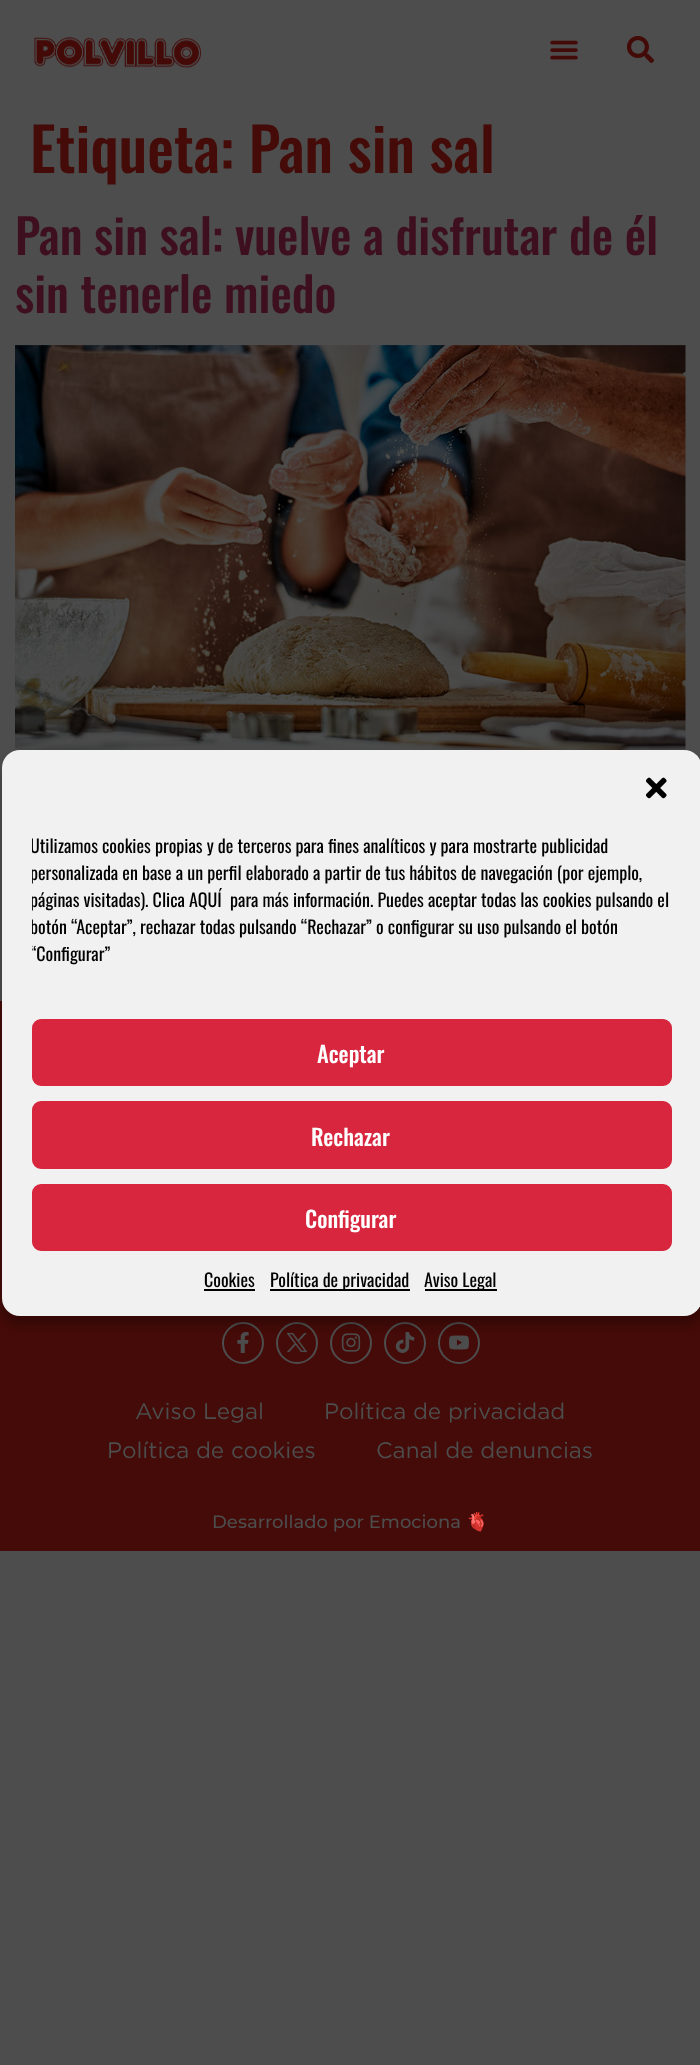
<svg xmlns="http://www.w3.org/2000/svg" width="700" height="2065">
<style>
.a{font:500 60px Oswald;fill:#440b08}
.b{font:500 48px Oswald;fill:#3d0f1f}
.c{font:18px Oswald;fill:#000}
.d{font:500 22.5px Oswald;fill:#fff}
.e{font:22.5px Gotham;fill:#4d4d4d}
.f{font:500 18px Montserrat;fill:#4d4d4d}
.g{font:18px Noto Color Emoji;fill:#4d4d4d}
</style>
<defs>
<clipPath id="clip1"><path d="M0 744h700v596h-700zm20 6h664c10 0 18 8 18 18v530c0 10-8 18-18 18h-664c-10 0-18-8-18-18v-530c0-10 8-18 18-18z" clip-rule="evenodd"/></clipPath>
<clipPath id="clip2"><path d="M32 833h640v156H32z"/></clipPath>
</defs>
<rect width="100%" height="100%" fill="#4d4d4d"/>
<image href="1.png" x="34" y="37" width="167" height="31"/>
<image href="2.png" x="550" y="40" width="28" height="20"/>
<image href="3.png" x="627" y="36" width="27" height="27"/>
<image href="4.png" x="15" y="345" width="671" height="406"/>
<path fill="#440b08" d="M0 1001h700v550H0z"/>
<circle fill="none" stroke="#4d4d4d" stroke-width="2" cx="243" cy="1343" r="20"/>
<image href="6.png" x="237" y="1332" width="12" height="21"/>
<circle fill="none" stroke="#4d4d4d" stroke-width="2" cx="297" cy="1343" r="20"/>
<image href="7.png" x="287" y="1332" width="21" height="21"/>
<circle fill="none" stroke="#4d4d4d" stroke-width="2" cx="351" cy="1343" r="20"/>
<image href="8.png" x="341" y="1333" width="20" height="19"/>
<circle fill="none" stroke="#4d4d4d" stroke-width="2" cx="405" cy="1343" r="20"/>
<image href="9.png" x="395" y="1332" width="20" height="21"/>
<circle fill="none" stroke="#4d4d4d" stroke-width="2" cx="459" cy="1343" r="20"/>
<image href="10.png" x="449" y="1335" width="20" height="15"/>
<g clip-path="url(#clip1)">
<rect fill="#0000003b" filter="blur(4.5px)" x="2" y="759" width="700" height="566" rx="18"/>
</g>
<rect fill="#f1f1f1" x="2" y="750" width="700" height="566" rx="18"/>
<image href="5.png" x="646" y="777" width="21" height="22"/>
<rect fill="#d7263d" stroke="#d7263d" stroke-width="2" x="33" y="1020" width="638" height="65" rx="8"/>
<rect fill="#d7263d" stroke="#d7263d" stroke-width="2" x="33" y="1102" width="638" height="66" rx="8"/>
<rect fill="#d7263d" stroke="#d7263d" stroke-width="2" x="33" y="1185" width="638" height="65" rx="8"/>
<path fill="#000" d="M204 1289h51v2H204z"/>
<path fill="#000" d="M270 1289h140v2H270z"/>
<path fill="#000" d="M425 1289h72v2H425z"/>
<text class="a" x="30" y="173">Etiqueta: Pan sin sal</text>
<text class="b" x="15" y="255">Pan sin sal: vuelve a disfrutar de él</text>
<text class="b" x="15" y="313">sin tenerle miedo</text>
<g clip-path="url(#clip2)">
<text class="c" x="30" y="853">Utilizamos cookies propias y de terceros para fines analíticos y para mostrarte publicidad</text>
<text class="c" x="30" y="880">personalizada en base a un perfil elaborado a partir de tus hábitos de navegación (por ejemplo,</text>
<text class="c" x="30" y="907">páginas visitadas). Clica</text>
</g>
<text class="c" x="189" y="907">AQUÍ</text>
<text class="c" x="230" y="907">para más información. Puedes aceptar todas las cookies pulsando el</text>
<g clip-path="url(#clip2)">
<text class="c" x="30" y="934">botón “Aceptar”, rechazar todas pulsando “Rechazar” o configurar su uso pulsando el botón</text>
<text class="c" x="30" y="961">“Configurar”</text>
</g>
<text class="d" x="317" y="1063">Aceptar</text>
<text class="d" x="311" y="1146">Rechazar</text>
<text class="d" x="305" y="1228">Configurar</text>
<text class="c" x="204" y="1287">Cookies</text>
<text class="c" x="270" y="1287">Política de privacidad</text>
<text class="c" x="424" y="1287">Aviso Legal</text>
<text class="e" x="135" y="1419">Aviso Legal</text>
<text class="e" x="324" y="1419">Política de privacidad</text>
<text class="e" x="107" y="1458">Política de cookies</text>
<text class="e" x="376" y="1458">Canal de denuncias</text>
<text class="f" x="212" y="1528">Desarrollado por Emociona</text>
<text class="g" x="466" y="1528">🫀</text>
</svg>
